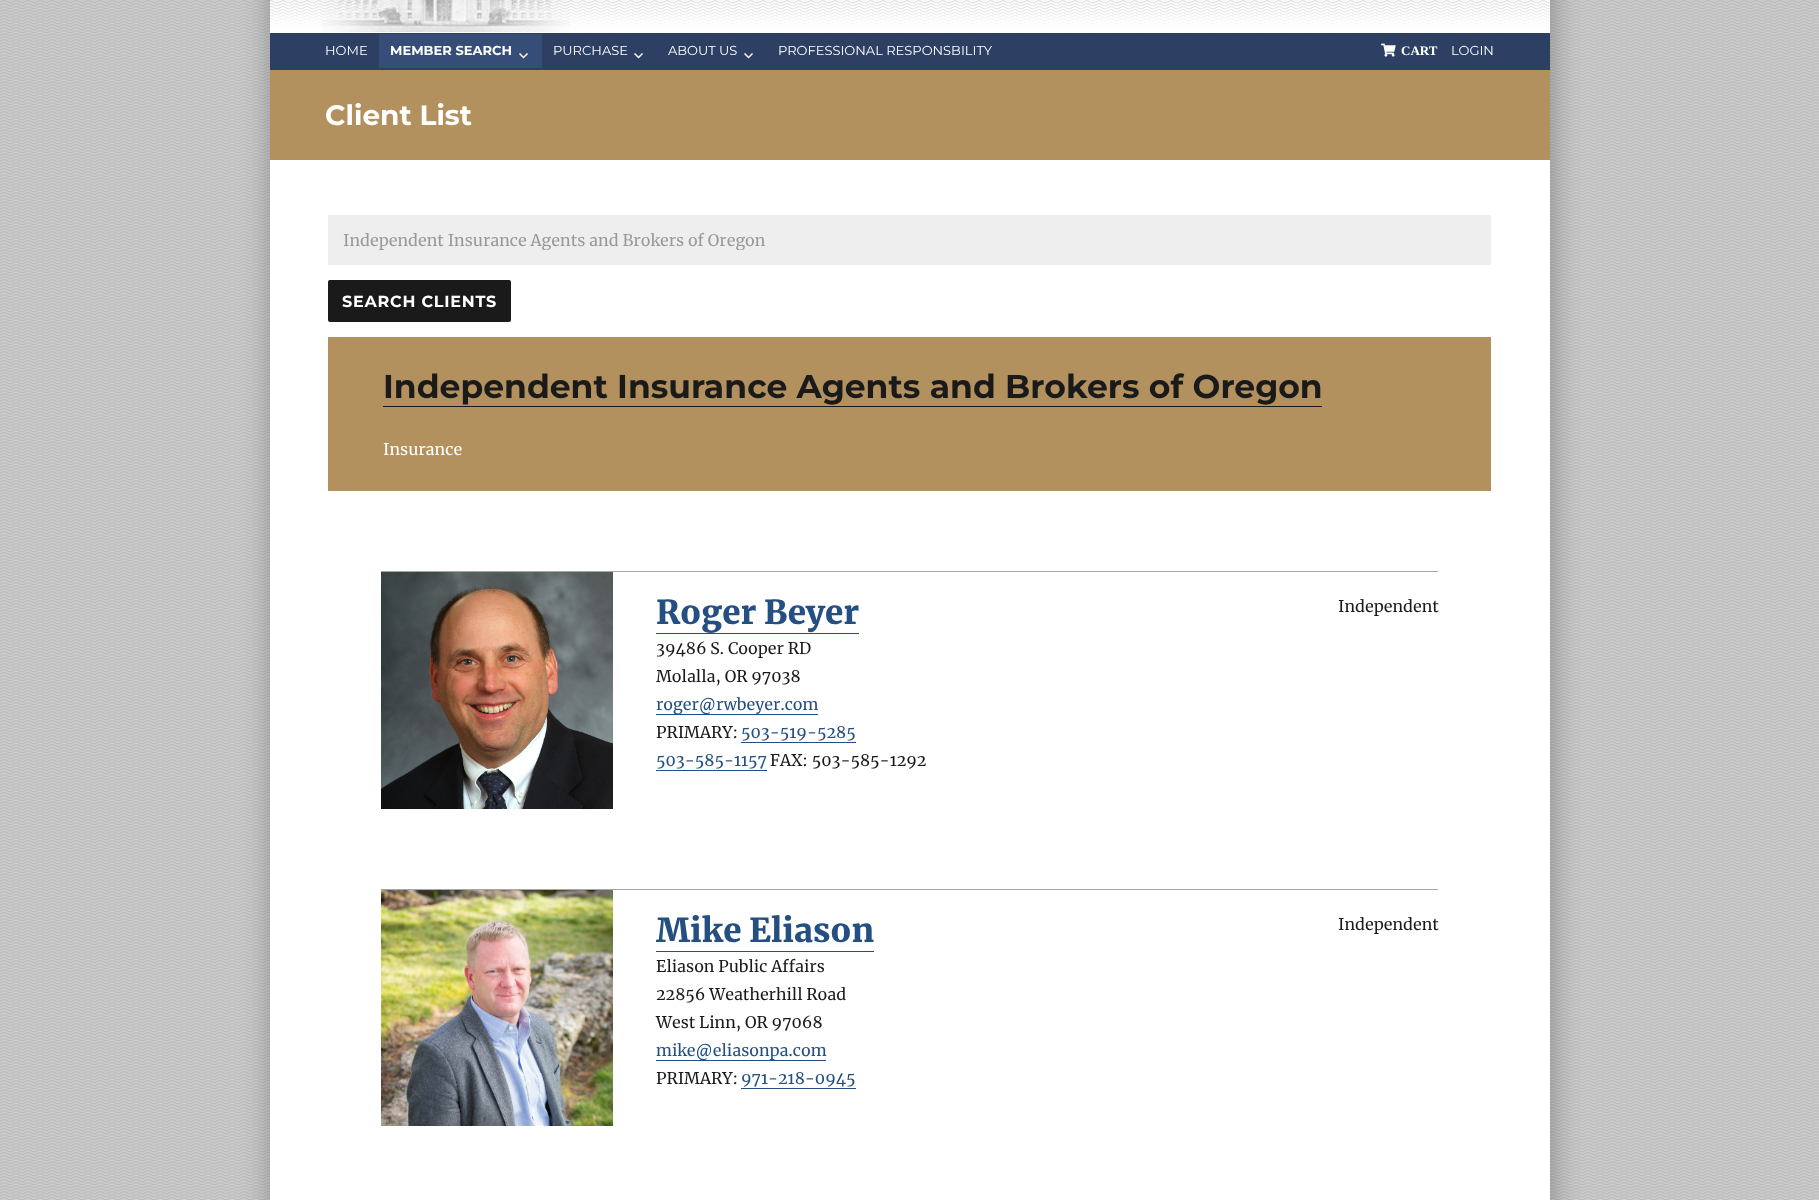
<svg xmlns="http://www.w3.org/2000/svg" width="1819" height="1200">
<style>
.a{font:100 13px 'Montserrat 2';fill:#fff}
.b{font:100 13px Montserrat;fill:#fff}
.c{font:bold 13px Liberation Serif;fill:#fff}
.d{font:100 28px Montserrat;fill:#fff}
.e{font:16px Merriweather;fill:#999}
.f{font:100 16px Montserrat;letter-spacing:0.75px;fill:#fff}
.g{font:100 33px Montserrat;fill:#1a1a1a}
.h{font:16px Merriweather;fill:#fff}
.i{font:900 33px Merriweather;fill:#254f82}
.j{font:16px Merriweather;fill:#1a1a1a}
.k{font:16px Merriweather;fill:#254f82}
</style>
<defs>
<clipPath id="clip1"><path d="M343 230h1133v20H343z"/></clipPath>
</defs>
<rect width="100%" height="100%" fill="#fff"/>
<image href="1.png" x="0" y="1098" width="1819" height="102"/>
<image href="2.png" x="0" y="0" width="1819" height="1098"/>
<path fill="#0000004d" filter="blur(15px)" d="M272 -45h1280v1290H272z"/>
<path fill="#fff" d="M270 160h1280v1040H270z"/>
<image href="3.png" x="270" y="0" width="1280" height="70"/>
<image href="4.png" x="321" y="0" width="249" height="32"/>
<path fill="#364d77" d="M379 34h163v34H379z"/>
<image href="5.png" x="519" y="53" width="9" height="6"/>
<image href="6.png" x="634" y="53" width="9" height="6"/>
<image href="6.png" x="744" y="53" width="9" height="6"/>
<image href="7.png" x="1381" y="43" width="15" height="14"/>
<path fill="#b2915e" d="M270 70h1280v90H270z"/>
<path fill="#eee" d="M328 215h1163v50H328z"/>
<rect fill="#1a1a1a" x="328" y="280" width="183" height="42" rx="2"/>
<path fill="#b2915e" d="M328 337h1163v154H328z"/>
<path fill="#1a1a1a" d="M383 406h939v1H383z"/>
<path fill="#a7a7a7" d="M381 571h1057v1H381z"/>
<image href="8.png" x="381" y="572" width="232" height="237"/>
<path fill="#254f82" d="M656 633h203v1H656z"/>
<path fill="#254f82" d="M656 714h162v1H656z"/>
<path fill="#254f82" d="M741 742h115v1H741z"/>
<path fill="#254f82" d="M656 770h111v1H656z"/>
<path fill="#a7a7a7" d="M381 889h1057v1H381z"/>
<image href="9.png" x="381" y="890" width="232" height="236"/>
<path fill="#254f82" d="M656 951h218v1H656z"/>
<path fill="#254f82" d="M656 1060h170v1H656z"/>
<path fill="#254f82" d="M741 1088h115v1H741z"/>
<text class="a" x="325" y="55">HOME</text>
<text class="b" x="390" y="55">MEMBER SEARCH</text>
<text class="a" x="553" y="55">PURCHASE</text>
<text class="a" x="668" y="55">ABOUT US</text>
<text class="a" x="778" y="55">PROFESSIONAL RESPONSBILITY</text>
<text class="c" x="1401" y="55">CART</text>
<text class="a" x="1451" y="55">LOGIN</text>
<text class="d" x="325" y="125">Client List</text>
<g clip-path="url(#clip1)">
<text class="e" x="343" y="246">Independent Insurance Agents and Brokers of Oregon</text>
</g>
<text class="f" x="342" y="307">SEARCH CLIENTS</text>
<text class="g" x="383" y="398">Independent Insurance Agents and Brokers of Oregon</text>
<text class="h" x="383" y="455">Insurance</text>
<text class="i" x="656" y="624">Roger Beyer</text>
<text class="j" x="656" y="654">39486 S. Cooper RD</text>
<text class="j" x="656" y="682">Molalla, OR 97038</text>
<text class="k" x="656" y="710">roger@rwbeyer.com</text>
<text class="j" x="656" y="738">PRIMARY:</text>
<text class="k" x="741" y="738">503-519-5285</text>
<text class="k" x="656" y="766">503-585-1157</text>
<text class="j" x="770" y="766">FAX: 503-585-1292</text>
<text class="j" x="1338" y="612">Independent</text>
<text class="i" x="656" y="942">Mike Eliason</text>
<text class="j" x="656" y="972">Eliason Public Affairs</text>
<text class="j" x="656" y="1000">22856 Weatherhill Road</text>
<text class="j" x="656" y="1028">West Linn, OR 97068</text>
<text class="k" x="656" y="1056">mike@eliasonpa.com</text>
<text class="j" x="656" y="1084">PRIMARY:</text>
<text class="k" x="741" y="1084">971-218-0945</text>
<text class="j" x="1338" y="930">Independent</text>
</svg>
